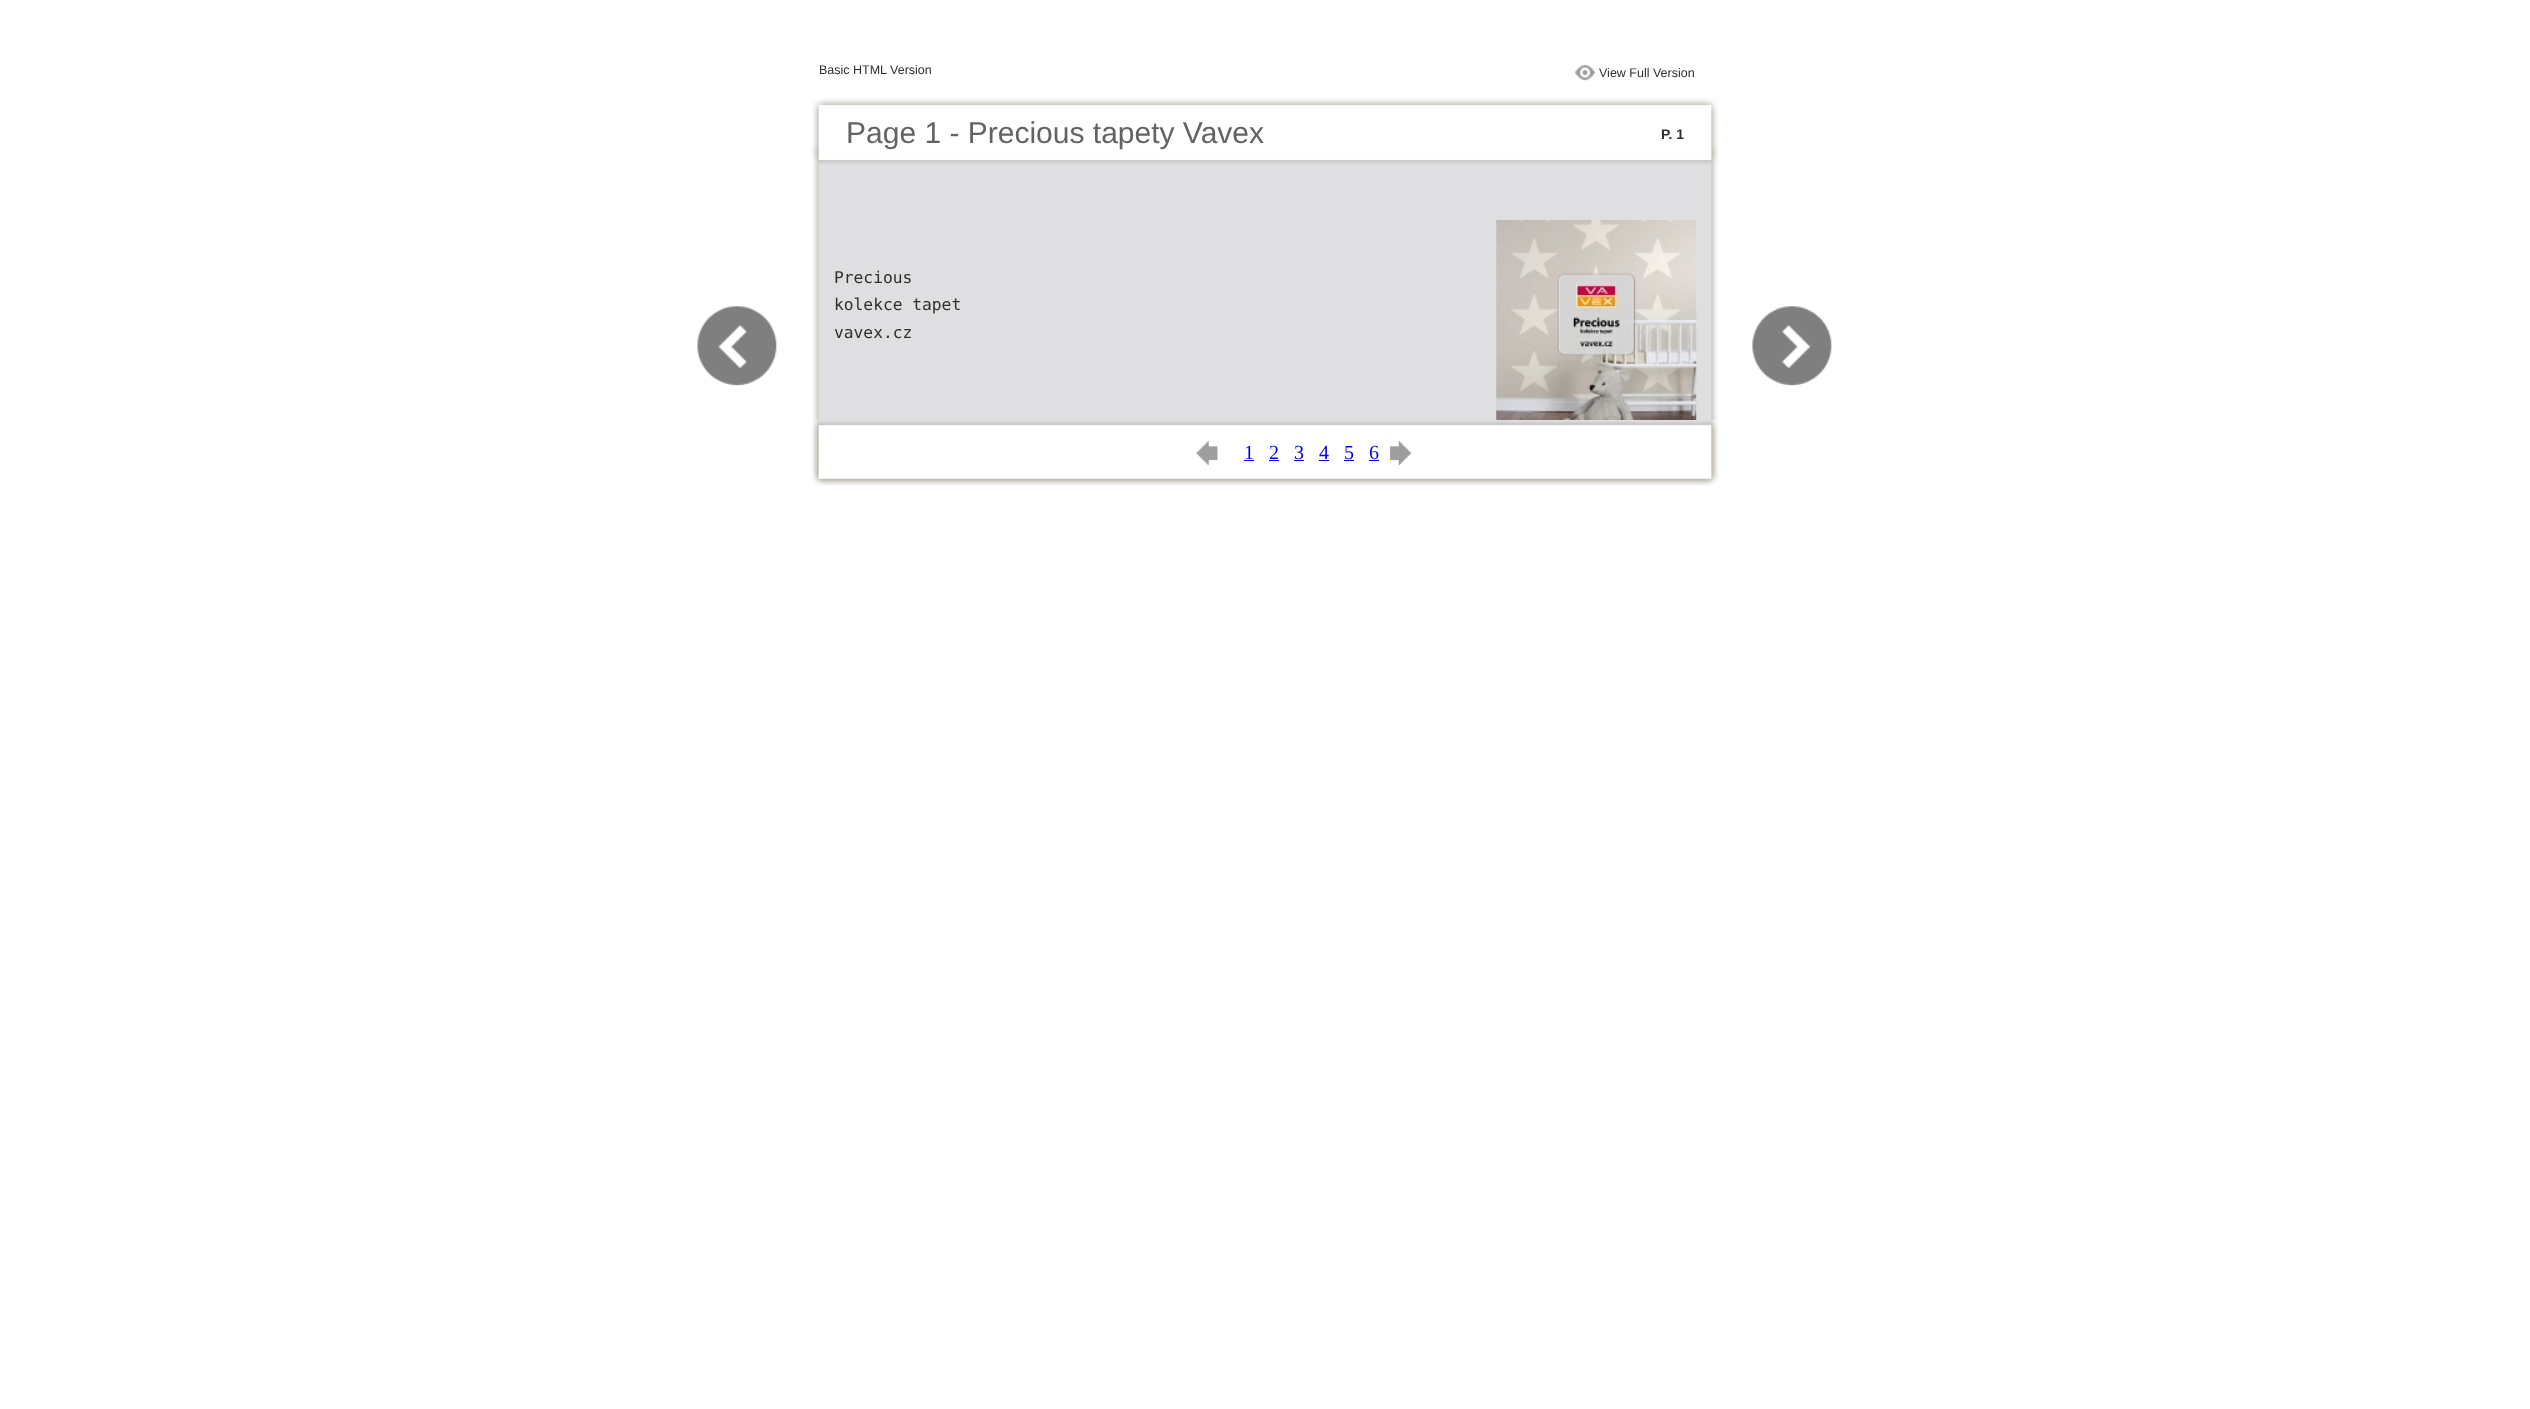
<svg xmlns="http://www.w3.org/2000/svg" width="2530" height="1409">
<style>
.a{font:12.5px Liberation Sans;fill:#2f2f2f}
.b{font:30px Liberation Sans;fill:#636363}
.c{font:bold 14px Liberation Sans;fill:#2f2f2f}
.d{font:16.25px DejaVu Sans Mono;fill:#2f2f2f}
.e{font:20px Liberation Serif;fill:#00e}
</style>
<rect width="100%" height="100%" fill="#fff"/>
<image href="1.png" x="697" y="306" width="80" height="80"/>
<image href="2.png" x="1575" y="64" width="21" height="17"/>
<image href="3.png" x="811" y="98" width="908" height="67"/>
<image href="4.png" x="812" y="165" width="906" height="255"/>
<image href="5.png" x="1496" y="220" width="201" height="200"/>
<image href="6.png" x="811" y="420" width="908" height="66"/>
<image href="7.png" x="1196" y="441" width="22" height="24"/>
<path fill="#00e" d="M1244 460h10v1H1244z"/>
<path fill="#00e" d="M1269 460h10v1H1269z"/>
<path fill="#00e" d="M1294 460h10v1H1294z"/>
<path fill="#00e" d="M1319 460h10v1H1319z"/>
<path fill="#00e" d="M1344 460h10v1H1344z"/>
<path fill="#00e" d="M1369 460h10v1H1369z"/>
<image href="8.png" x="1389" y="441" width="23" height="24"/>
<image href="9.png" x="1752" y="306" width="80" height="80"/>
<text class="a" x="819" y="74">Basic HTML Version</text>
<text class="a" x="1599" y="77">View Full Version</text>
<text class="b" x="846" y="143">Page 1 - Precious tapety Vavex</text>
<text class="c" x="1661" y="139">P. 1</text>
<text class="d" x="834" y="283">Precious</text>
<text class="d" x="834" y="310">kolekce tapet</text>
<text class="d" x="834" y="338">vavex.cz</text>
<text class="e" x="1244" y="459">1</text>
<text class="e" x="1269" y="459">2</text>
<text class="e" x="1294" y="459">3</text>
<text class="e" x="1319" y="459">4</text>
<text class="e" x="1344" y="459">5</text>
<text class="e" x="1369" y="459">6</text>
</svg>
